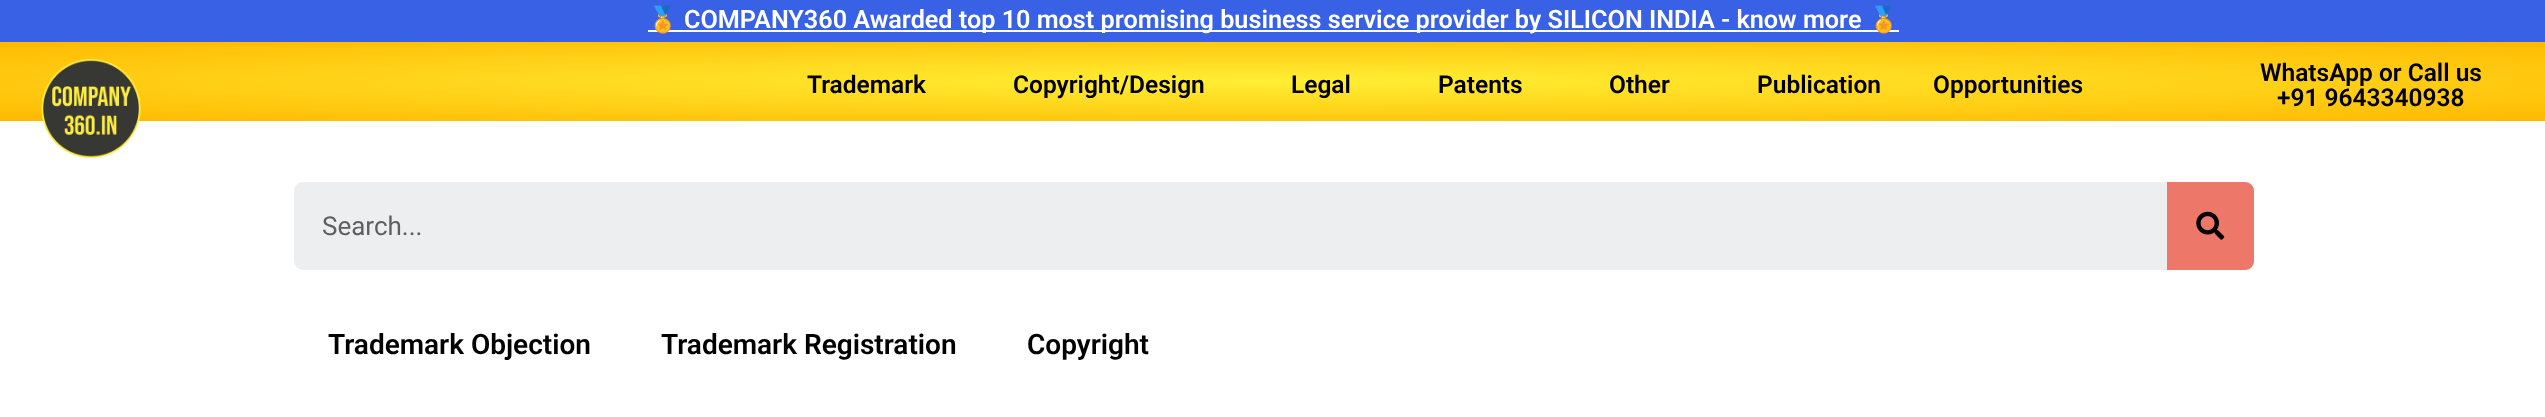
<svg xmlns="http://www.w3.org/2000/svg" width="2545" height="417">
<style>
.a{font:bold 25.2px Noto Color Emoji;fill:#fff}
.b{font:600 25.2px Roboto;fill:#fff}
.c{font:600 24.5px Roboto;fill:#000}
.d{font:26px Roboto;fill:#5e5f60}
.e{font:600 28px Roboto;fill:#000}
</style>
<defs>
<radialGradient id="g1" gradientUnits="userSpaceOnUse" cx="0" cy="0" r="1" gradientTransform="matrix(1800 0 0 56 1273 81)"><stop offset="0" stop-color="#ffef35"/><stop offset="1" stop-color="#ffb800"/></radialGradient>
</defs>
<rect width="100%" height="100%" fill="#fff"/>
<path fill="#3861e6" d="M0 0h2545v42H0z"/>
<path fill="#fff" d="M648 30h1251v2H648z"/>
<path fill="url(#g1)" d="M0 42h2545v79H0z"/>
<image href="1.png" x="41" y="59" width="100" height="100"/>
<rect fill="#eceeef" x="294" y="182" width="1960" height="88" rx="9"/>
<path fill="#ed786a" d="M2167 182h78c5 0 9 4 9 9v70c0 5-4 9-9 9h-78z"/>
<image href="2.png" x="2196" y="211" width="29" height="29"/>
<text class="a" x="647" y="28">🏅</text>
<text class="b" x="684" y="28">COMPANY360 Awarded top 10 most promising business service provider by SILICON INDIA - know more</text>
<text class="a" x="1868" y="28">🏅</text>
<text class="c" x="807" y="93">Trademark</text>
<text class="c" x="1013" y="93">Copyright/Design</text>
<text class="c" x="1291" y="93">Legal</text>
<text class="c" x="1438" y="93">Patents</text>
<text class="c" x="1609" y="93">Other</text>
<text class="c" x="1757" y="93">Publication</text>
<text class="c" x="1933" y="93">Opportunities</text>
<text class="c" x="2260" y="81">WhatsApp or Call us</text>
<text class="c" x="2277" y="106">+91 9643340938</text>
<text class="d" x="322" y="235">Search...</text>
<text class="e" x="328" y="354">Trademark Objection</text>
<text class="e" x="661" y="354">Trademark Registration</text>
<text class="e" x="1027" y="354">Copyright</text>
</svg>
